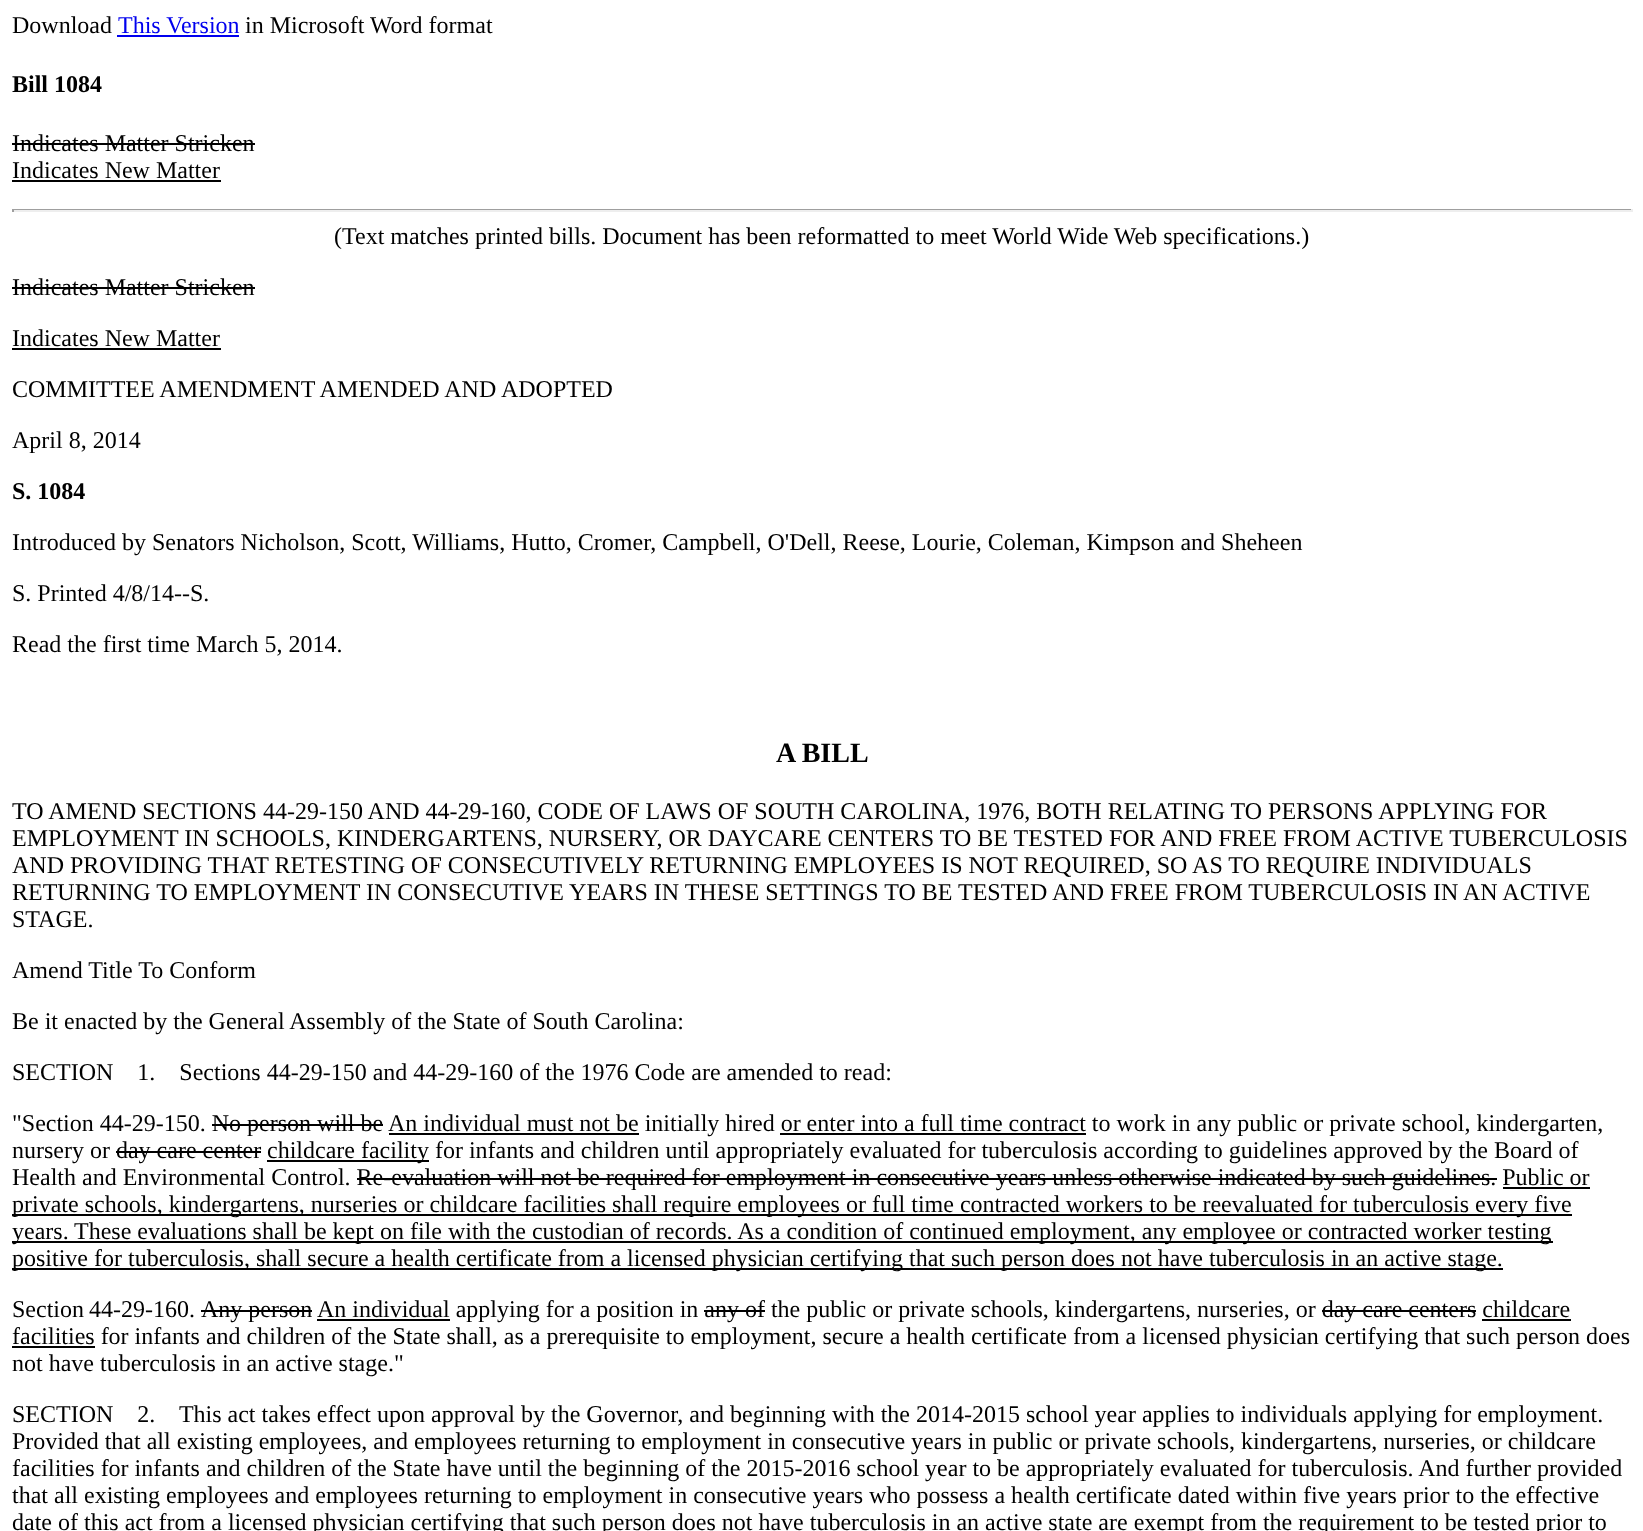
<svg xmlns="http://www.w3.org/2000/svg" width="1643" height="1531">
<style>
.a{font:24px Liberation Serif;fill:#000}
.b{font:24px Liberation Serif;fill:#00e}
.c{font:bold 24px Liberation Serif;fill:#000}
.d{font:bold 28px Liberation Serif;fill:#000}
</style>
<rect width="100%" height="100%" fill="#fff"/>
<path fill="#00e" d="M117 35h122v2H117z"/>
<path fill="#000" d="M12 143h243v2H12z"/>
<path fill="#000" d="M12 180h209v2H12z"/>
<path fill="#9f9f9f" d="M12 209h1620v1H12z"/>
<path fill="#eee" d="M1631 209h2v3H1631z"/>
<path fill="#eee" d="M12 210h1620v2H12z"/>
<path fill="#9f9f9f" d="M12 209h2v3H12z"/>
<path fill="#000" d="M12 287h243v2H12z"/>
<path fill="#000" d="M12 348h209v2H12z"/>
<path fill="#000" d="M389 1133h250v2H389z"/>
<path fill="#000" d="M212 1124h171v2H212z"/>
<path fill="#000" d="M780 1133h306v2H780z"/>
<path fill="#000" d="M267 1160h162v2H267z"/>
<path fill="#000" d="M116 1151h145v2H116z"/>
<path fill="#000" d="M357 1178h1140v2H357z"/>
<path fill="#000" d="M1503 1187h87v2H1503z"/>
<path fill="#000" d="M12 1214h1560v2H12z"/>
<path fill="#000" d="M12 1241h1541v2H12z"/>
<path fill="#000" d="M12 1268h1491v2H12z"/>
<path fill="#000" d="M201 1310h111v2H201z"/>
<path fill="#000" d="M317 1319h133v2H317z"/>
<path fill="#000" d="M704 1310h61v2H704z"/>
<path fill="#000" d="M1322 1310h154v2H1322z"/>
<path fill="#000" d="M1482 1319h89v2H1482z"/>
<path fill="#000" d="M12 1346h83v2H12z"/>
<text class="a" x="12" y="33">Download</text>
<text class="b" x="118" y="33">This Version</text>
<text class="a" x="245" y="33">in Microsoft Word format</text>
<text class="c" x="12" y="92">Bill 1084</text>
<text class="a" x="12" y="151">Indicates Matter Stricken</text>
<text class="a" x="12" y="178">Indicates New Matter</text>
<text class="a" x="334" y="244">(Text matches printed bills. Document has been reformatted to meet World Wide Web specifications.)</text>
<text class="a" x="12" y="295">Indicates Matter Stricken</text>
<text class="a" x="12" y="346">Indicates New Matter</text>
<text class="a" x="12" y="397">COMMITTEE AMENDMENT AMENDED AND ADOPTED</text>
<text class="a" x="12" y="448">April 8, 2014</text>
<text class="c" x="12" y="499">S. 1084</text>
<text class="a" x="12" y="550">Introduced by Senators Nicholson, Scott, Williams, Hutto, Cromer, Campbell, O'Dell, Reese, Lourie, Coleman, Kimpson and Sheheen</text>
<text class="a" x="12" y="601">S. Printed 4/8/14--S.</text>
<text class="a" x="12" y="652">Read the first time March 5, 2014.</text>
<text class="d" x="776" y="762">A BILL</text>
<text class="a" x="12" y="819">TO AMEND SECTIONS 44-29-150 AND 44-29-160, CODE OF LAWS OF SOUTH CAROLINA, 1976, BOTH RELATING TO PERSONS APPLYING FOR</text>
<text class="a" x="12" y="846">EMPLOYMENT IN SCHOOLS, KINDERGARTENS, NURSERY, OR DAYCARE CENTERS TO BE TESTED FOR AND FREE FROM ACTIVE TUBERCULOSIS</text>
<text class="a" x="12" y="873">AND PROVIDING THAT RETESTING OF CONSECUTIVELY RETURNING EMPLOYEES IS NOT REQUIRED, SO AS TO REQUIRE INDIVIDUALS</text>
<text class="a" x="12" y="900">RETURNING TO EMPLOYMENT IN CONSECUTIVE YEARS IN THESE SETTINGS TO BE TESTED AND FREE FROM TUBERCULOSIS IN AN ACTIVE</text>
<text class="a" x="12" y="927">STAGE.</text>
<text class="a" x="12" y="978">Amend Title To Conform</text>
<text class="a" x="12" y="1029">Be it enacted by the General Assembly of the State of South Carolina:</text>
<text class="a" xml:space="preserve" x="12" y="1080">SECTION    1.    Sections 44-29-150 and 44-29-160 of the 1976 Code are amended to read:</text>
<text class="a" x="12" y="1131">"Section 44-29-150. No person will be</text>
<text class="a" x="388" y="1131">An individual must not be initially hired or enter into a full time contract to work in any public or private school, kindergarten,</text>
<text class="a" x="12" y="1158">nursery or day care center</text>
<text class="a" x="267" y="1158">childcare facility for infants and children until appropriately evaluated for tuberculosis according to guidelines approved by the Board of</text>
<text class="a" x="12" y="1185">Health and Environmental Control. Re-evaluation will not be required for employment in consecutive years unless otherwise indicated by such guidelines. Public or</text>
<text class="a" x="12" y="1212">private schools, kindergartens, nurseries or childcare facilities shall require employees or full time contracted workers to be reevaluated for tuberculosis every five</text>
<text class="a" x="12" y="1239">years.</text>
<text class="a" x="74" y="1239">These evaluations shall be kept on file with the custodian of records. As a condition of continued employment, any employee or contracted worker testing</text>
<text class="a" x="12" y="1266">positive for tuberculosis, shall secure a health certificate from a licensed physician certifying that such person does not have tuberculosis in an active stage.</text>
<text class="a" x="12" y="1317" word-spacing="-1">Section 44-29-160.</text>
<text class="a" x="201" y="1317">Any person</text>
<text class="a" x="317" y="1317">An individual applying for a position in any of the public or private schools, kindergartens, nurseries, or day care centers childcare</text>
<text class="a" x="12" y="1344">facilities for infants and children of the State shall, as a prerequisite to employment, secure a health certificate from a licensed physician certifying that such person does</text>
<text class="a" x="12" y="1371">not have tuberculosis in an active stage."</text>
<text class="a" xml:space="preserve" x="12" y="1422">SECTION    2.    This act takes effect upon approval by the Governor, and beginning with the 2014-2015 school year applies to individuals applying for employment.</text>
<text class="a" x="12" y="1449">Provided that all existing employees, and employees returning to employment in consecutive years in public or private schools, kindergartens, nurseries, or childcare</text>
<text class="a" x="12" y="1476">facilities for infants and children of the State have until the beginning of the 2015-2016 school year to be appropriately evaluated for tuberculosis. And further provided</text>
<text class="a" x="12" y="1503">that all existing employees and employees returning to employment in consecutive years who possess a health certificate dated within five years prior to the effective</text>
<text class="a" x="12" y="1530">date of this act from a licensed physician certifying that such person does not have tuberculosis in an active state are exempt from the requirement to be tested prior to</text>
</svg>
